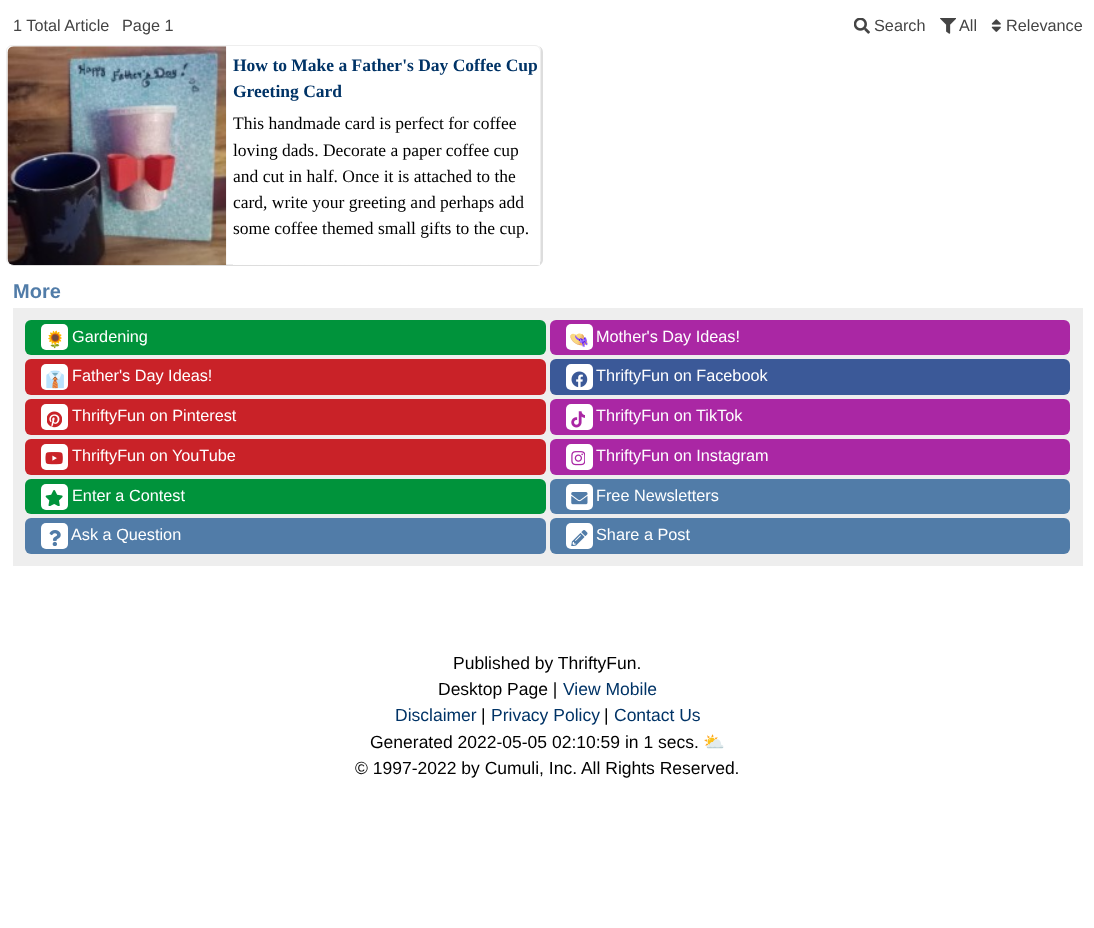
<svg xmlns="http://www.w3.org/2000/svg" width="1094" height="928">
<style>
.a{font:16.25px Liberation Sans;fill:#444}
.b{font:bold 17.5px Liberation Serif;fill:#036}
.c{font:17.5px Liberation Serif;fill:#000}
.d{font:bold 20px Liberation Sans;fill:#517ca8}
.e{font:16.25px Noto Color Emoji;fill:#517ca8}
.f{font:16.25px Liberation Sans;fill:#fff}
.g{font:17.5px Liberation Sans;fill:#000}
.h{font:17.5px Liberation Sans;fill:#036}
.i{font:17.5px Noto Color Emoji;fill:#036}
</style>
<defs>
<linearGradient id="g1" gradientUnits="userSpaceOnUse" x1="386" y1="240" x2="386" y2="265"><stop offset="0" stop-color="#fff" stop-opacity="0"/><stop offset="0.33" stop-color="#fff" stop-opacity="0.6"/><stop offset="0.67" stop-color="#fff" stop-opacity="0.9"/><stop offset="1" stop-color="#fff"/></linearGradient>
<clipPath id="clip1"><path d="M233 46h307v219H233z"/></clipPath>
</defs>
<rect width="100%" height="100%" fill="#fff"/>
<image href="1.png" x="854" y="18" width="16" height="16"/>
<image href="2.png" x="940" y="18" width="16" height="16"/>
<image href="3.png" x="991" y="19" width="10" height="13"/>
<path fill="#ddd" d="M10 264c1 1 2 2 4 2h523c3 0 6-3 6-6v-208c0-3-2-5-4-6c1 1 2 3 2 5v208c0 3-3 6-6 6h-523z"/>
<rect fill="none" stroke="#eee" x="6.5" y="45.5" width="534" height="219" rx="5.5"/>
<image href="4.png" x="7" y="46" width="220" height="219"/>
<path fill="url(#g1)" d="M233 260h307v5H233z"/>
<path fill="#eee" d="M13 308h1070v258H13z"/>
<rect fill="#00933b" x="25" y="320" width="521" height="35" rx="6"/>
<rect fill="#fff" x="41" y="324" width="27" height="26" rx="5"/>
<rect fill="#aa27a4" x="550" y="320" width="520" height="35" rx="6"/>
<rect fill="#fff" x="566" y="324" width="27" height="26" rx="5"/>
<rect fill="#c92228" x="25" y="359" width="521" height="36" rx="6"/>
<rect fill="#fff" x="41" y="364" width="27" height="26" rx="5"/>
<rect fill="#3b5998" x="550" y="359" width="520" height="36" rx="6"/>
<rect fill="#fff" x="566" y="364" width="27" height="26" rx="5"/>
<image href="5.png" x="571" y="371" width="17" height="17"/>
<rect fill="#c92228" x="25" y="399" width="521" height="36" rx="6"/>
<rect fill="#fff" x="41" y="404" width="27" height="26" rx="5"/>
<image href="6.png" x="47" y="411" width="15" height="17"/>
<rect fill="#aa27a4" x="550" y="399" width="520" height="36" rx="6"/>
<rect fill="#fff" x="566" y="404" width="27" height="26" rx="5"/>
<image href="7.png" x="571" y="411" width="14" height="17"/>
<rect fill="#c92228" x="25" y="439" width="521" height="36" rx="6"/>
<rect fill="#fff" x="41" y="444" width="27" height="26" rx="5"/>
<image href="8.png" x="45" y="452" width="18" height="13"/>
<rect fill="#aa27a4" x="550" y="439" width="520" height="36" rx="6"/>
<rect fill="#fff" x="566" y="444" width="27" height="26" rx="5"/>
<image href="9.png" x="571" y="451" width="14" height="15"/>
<rect fill="#00933b" x="25" y="479" width="521" height="35" rx="6"/>
<rect fill="#fff" x="41" y="484" width="27" height="26" rx="5"/>
<image href="10.png" x="45" y="490" width="18" height="16"/>
<rect fill="#517ca8" x="550" y="479" width="520" height="35" rx="6"/>
<rect fill="#fff" x="566" y="484" width="27" height="26" rx="5"/>
<image href="11.png" x="571" y="492" width="17" height="13"/>
<rect fill="#517ca8" x="25" y="518" width="521" height="36" rx="6"/>
<rect fill="#fff" x="41" y="523" width="27" height="26" rx="5"/>
<image href="12.png" x="49" y="530" width="12" height="16"/>
<rect fill="#517ca8" x="550" y="518" width="520" height="36" rx="6"/>
<rect fill="#fff" x="566" y="523" width="27" height="26" rx="5"/>
<image href="13.png" x="571" y="530" width="17" height="16"/>
<text class="a" x="13" y="31">1 Total Article</text>
<text class="a" x="122" y="31">Page 1</text>
<text class="a" x="874" y="31">Search</text>
<text class="a" x="959" y="31">All</text>
<text class="a" x="1006" y="31">Relevance</text>
<text class="b" x="233" y="71">How to Make a Father's Day Coffee Cup</text>
<text class="b" x="233" y="97">Greeting Card</text>
<g clip-path="url(#clip1)">
<text class="c" x="233" y="129">This handmade card is perfect for coffee</text>
</g>
<text class="c" x="233" y="156">loving dads. Decorate a paper coffee cup</text>
<text class="c" x="233" y="182">and cut in half. Once it is attached to the</text>
<text class="c" x="233" y="208">card, write your greeting and perhaps add</text>
<text class="c" x="233" y="234">some coffee themed small gifts to the cup.</text>
<text class="d" x="13" y="298">More</text>
<text class="e" x="45" y="345">🌻</text>
<text class="f" x="72" y="342">Gardening</text>
<text class="e" x="569" y="345">👒</text>
<text class="f" x="596" y="342">Mother's Day Ideas!</text>
<text class="e" x="45" y="385">👔</text>
<text class="f" x="72" y="381">Father's Day Ideas!</text>
<text class="f" x="596" y="381">ThriftyFun on Facebook</text>
<text class="f" x="72" y="421">ThriftyFun on Pinterest</text>
<text class="f" x="596" y="421">ThriftyFun on TikTok</text>
<text class="f" x="72" y="461">ThriftyFun on YouTube</text>
<text class="f" x="596" y="461">ThriftyFun on Instagram</text>
<text class="f" x="72" y="501">Enter a Contest</text>
<text class="f" x="596" y="501">Free Newsletters</text>
<text class="f" x="71" y="540">Ask a Question</text>
<text class="f" x="596" y="540">Share a Post</text>
<text class="g" x="453" y="669">Published by ThriftyFun.</text>
<text class="g" x="438" y="695">Desktop Page |</text>
<text class="h" x="563" y="695">View Mobile</text>
<text class="h" x="395" y="721">Disclaimer</text>
<text class="g" x="481" y="721">|</text>
<text class="h" x="491" y="721">Privacy Policy</text>
<text class="g" x="604" y="721">|</text>
<text class="h" x="614" y="721">Contact Us</text>
<text class="g" x="370" y="748">Generated 2022-05-05 02:10:59 in 1 secs.</text>
<text class="i" x="703" y="748">⛅️️</text>
<text class="g" x="355" y="774">© 1997-2022 by Cumuli, Inc. All Rights Reserved.</text>
</svg>
